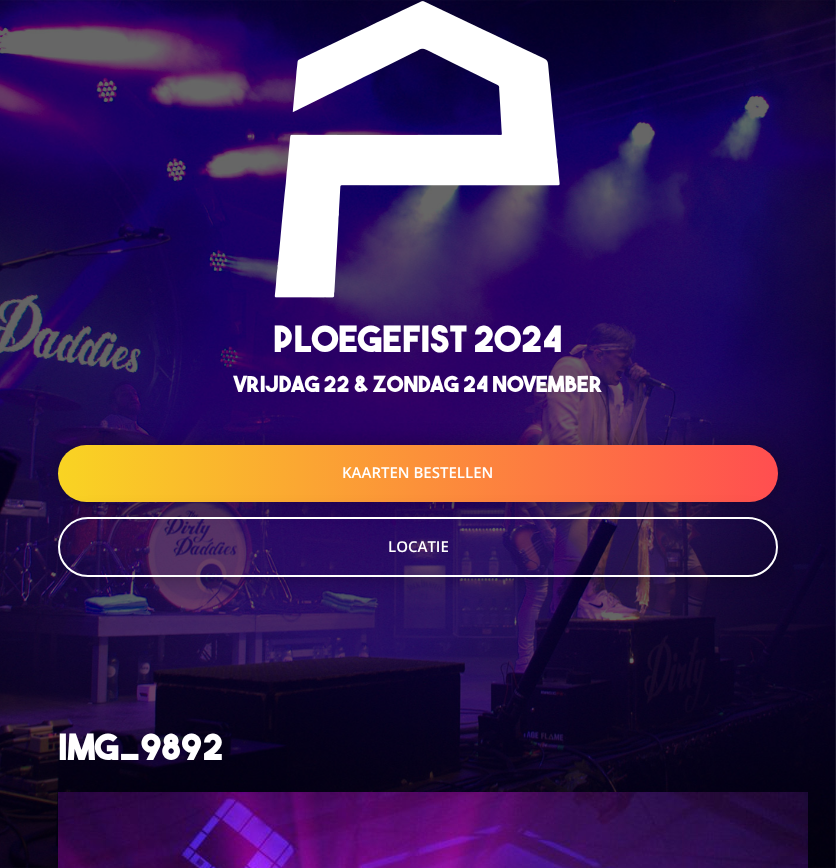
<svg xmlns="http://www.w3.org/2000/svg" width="836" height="868">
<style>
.a{font:bold 36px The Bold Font;fill:#fff}
.b{font:bold 22px The Bold Font;fill:#fff}
.c{font:600 15px Open Sans;fill:#fff}
</style>
<defs>
<linearGradient id="g1" gradientUnits="userSpaceOnUse" x1="778" y1="474" x2="58" y2="474"><stop offset="0" stop-color="#ff4e50"/><stop offset="1" stop-color="#f9d423"/></linearGradient>
<clipPath id="clip1"><path d="M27 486h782v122h-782zm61 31h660c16.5 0 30 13.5 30 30c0 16.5-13.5 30-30 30h-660c-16.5 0-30-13.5-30-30c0-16.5 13.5-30 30-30z" clip-rule="evenodd"/></clipPath>
</defs>
<rect width="100%" height="100%" fill="#fff"/>
<image href="1.png" x="0" y="0" width="836" height="868"/>
<image href="2.png" x="274" y="1" width="286" height="297"/>
<rect fill="#0000004d" filter="blur(10px)" x="58" y="445" width="720" height="57" rx="28.5"/>
<rect fill="url(#g1)" x="58" y="445" width="720" height="57" rx="28.5"/>
<g clip-path="url(#clip1)">
<rect fill="#0000004d" filter="blur(10px)" x="58" y="517" width="720" height="60" rx="30"/>
</g>
<rect fill="none" stroke="#fff" stroke-width="2" x="59" y="518" width="718" height="58" rx="29"/>
<image href="3.png" x="58" y="792" width="750" height="76"/>
<text class="a" x="273" y="352">PLOEGEFIST 2024</text>
<text class="b" x="234" y="392">VRIJDAG 22 &amp; ZONDAG 24 NOVEMBER</text>
<text class="c" x="342" y="478">KAARTEN BESTELLEN</text>
<text class="c" x="388" y="552">LOCATIE</text>
<text class="a" x="58" y="760">IMG_9892</text>
</svg>
